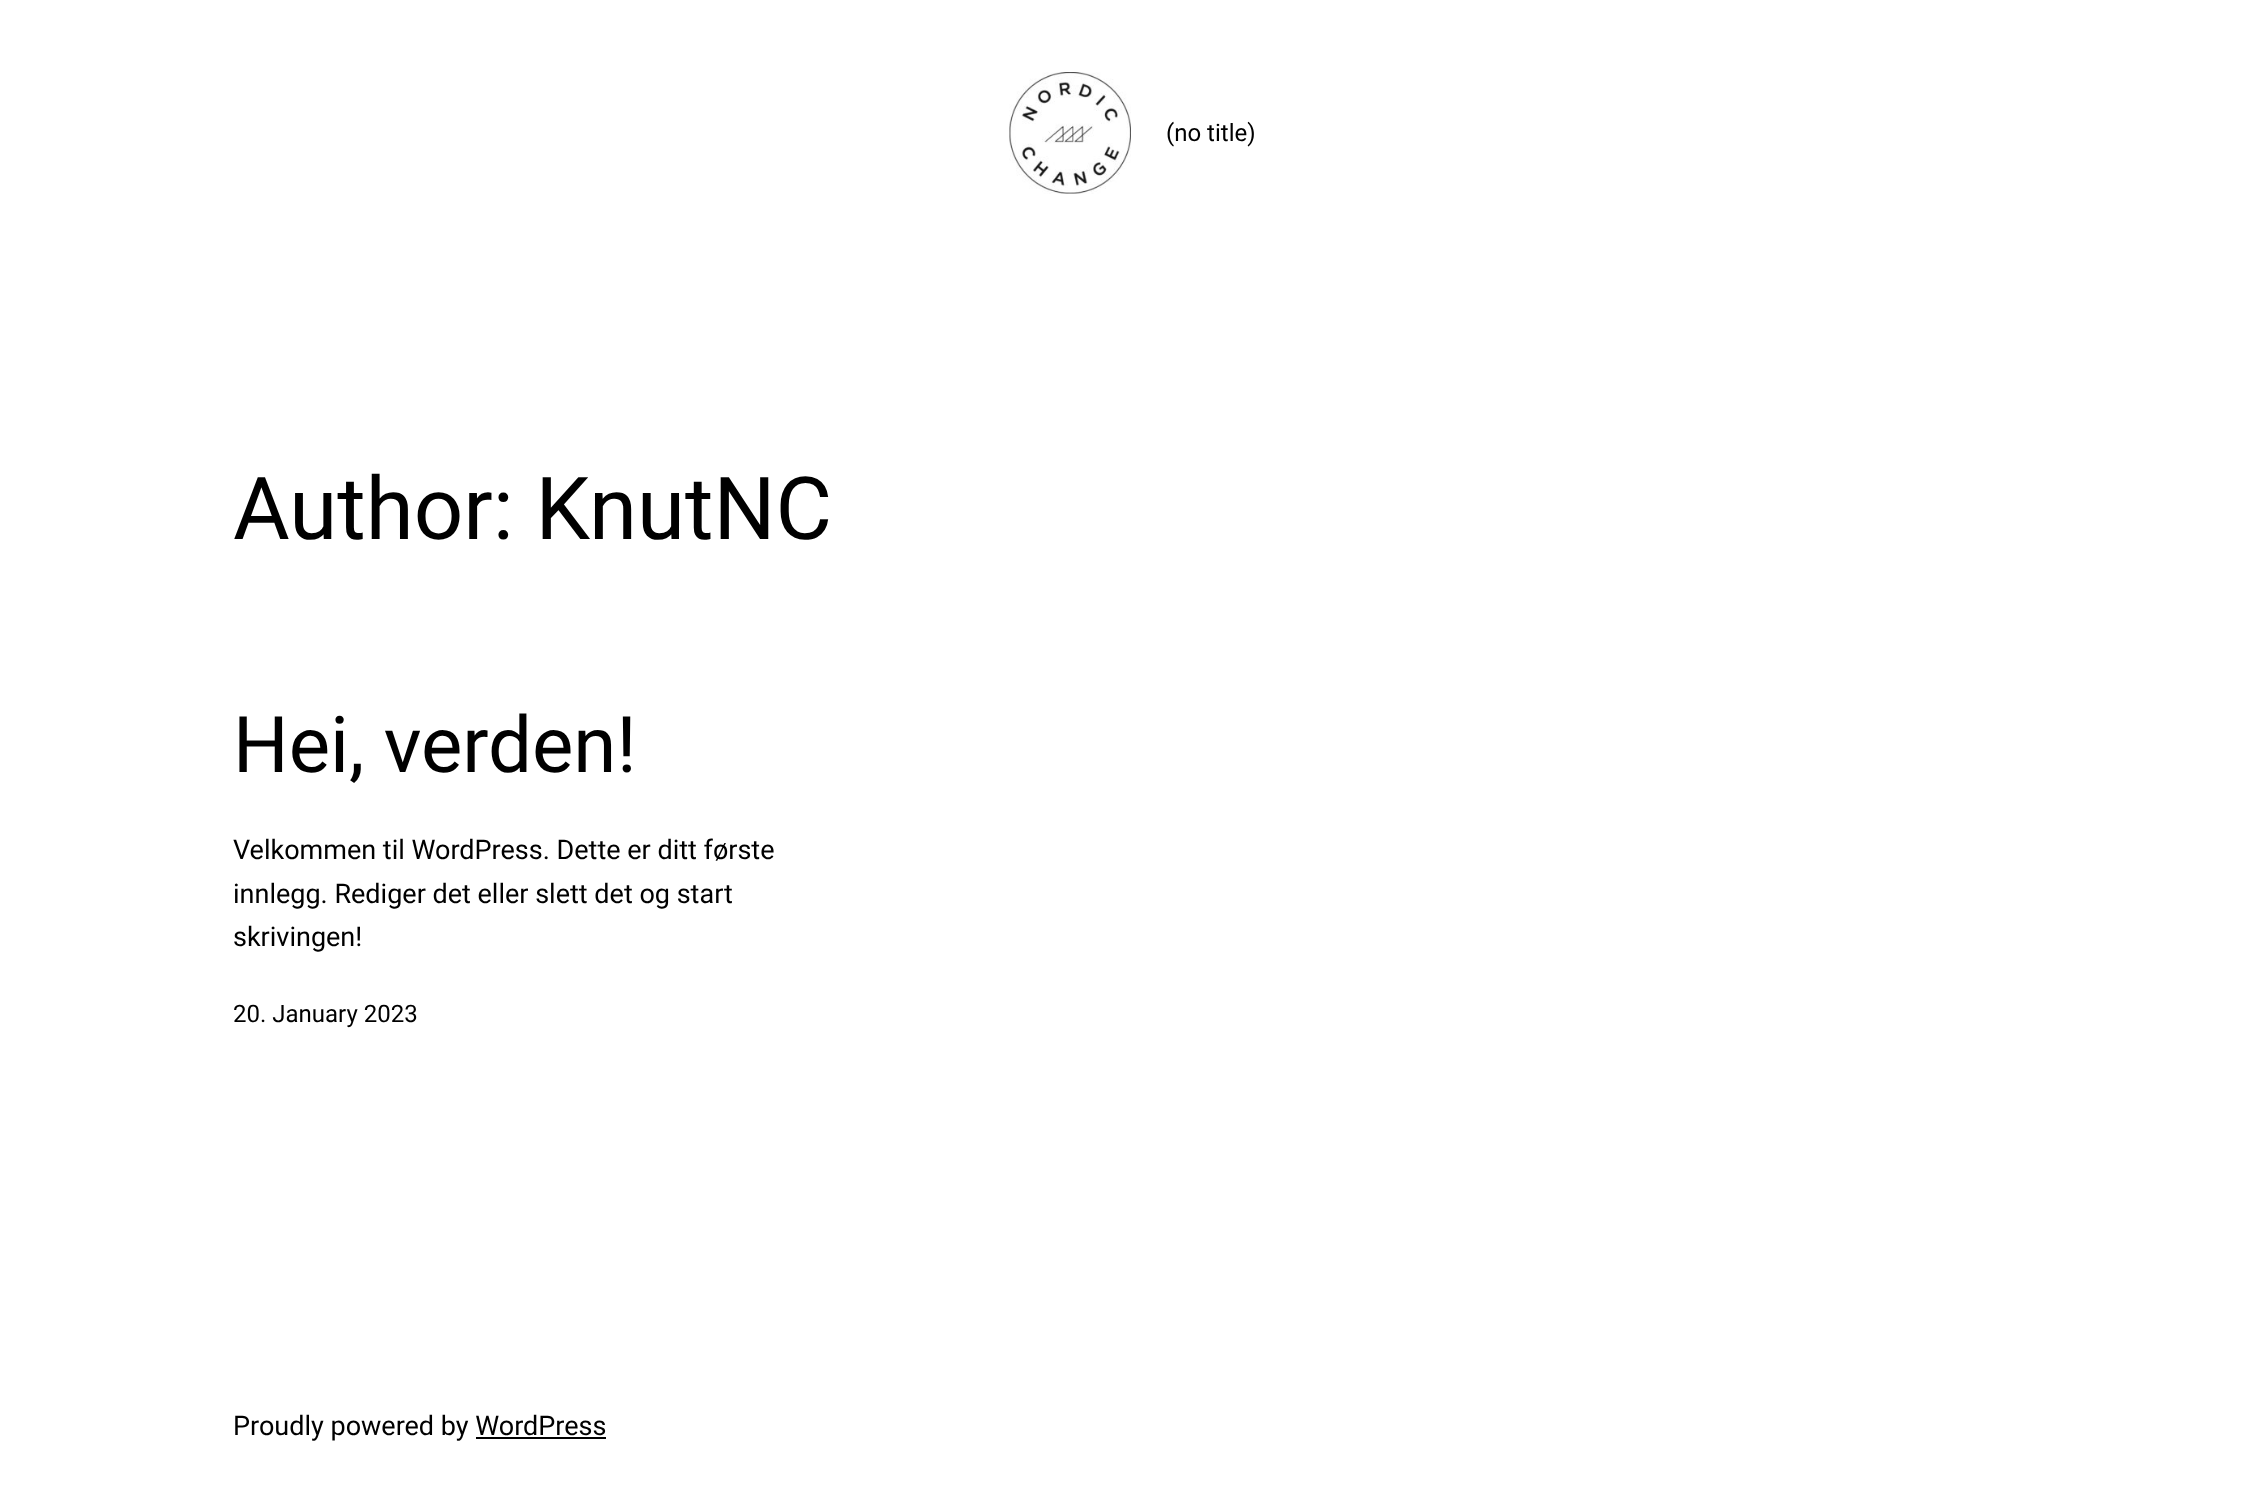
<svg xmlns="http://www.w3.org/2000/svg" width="2264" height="1501">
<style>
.a{font:24px Roboto;fill:#000}
.b{font:87px Roboto;fill:#000}
.c{font:78px Roboto;fill:#000}
.d{font:27px Roboto;fill:#000}
</style>
<rect width="100%" height="100%" fill="#fff"/>
<image href="1.png" x="1009" y="72" width="122" height="122"/>
<path fill="#000" d="M476 1437h130v2H476z"/>
<text class="a" x="1166" y="141">(no title)</text>
<text class="b" x="233" y="539">Author: KnutNC</text>
<text class="c" x="233" y="772">Hei, verden!</text>
<text class="d" x="233" y="859">Velkommen til WordPress. Dette er ditt første</text>
<text class="d" x="233" y="903">innlegg. Rediger det eller slett det og start</text>
<text class="d" x="233" y="946">skrivingen!</text>
<text class="a" x="233" y="1022">20. January 2023</text>
<text class="d" x="233" y="1435">Proudly powered by WordPress</text>
</svg>
